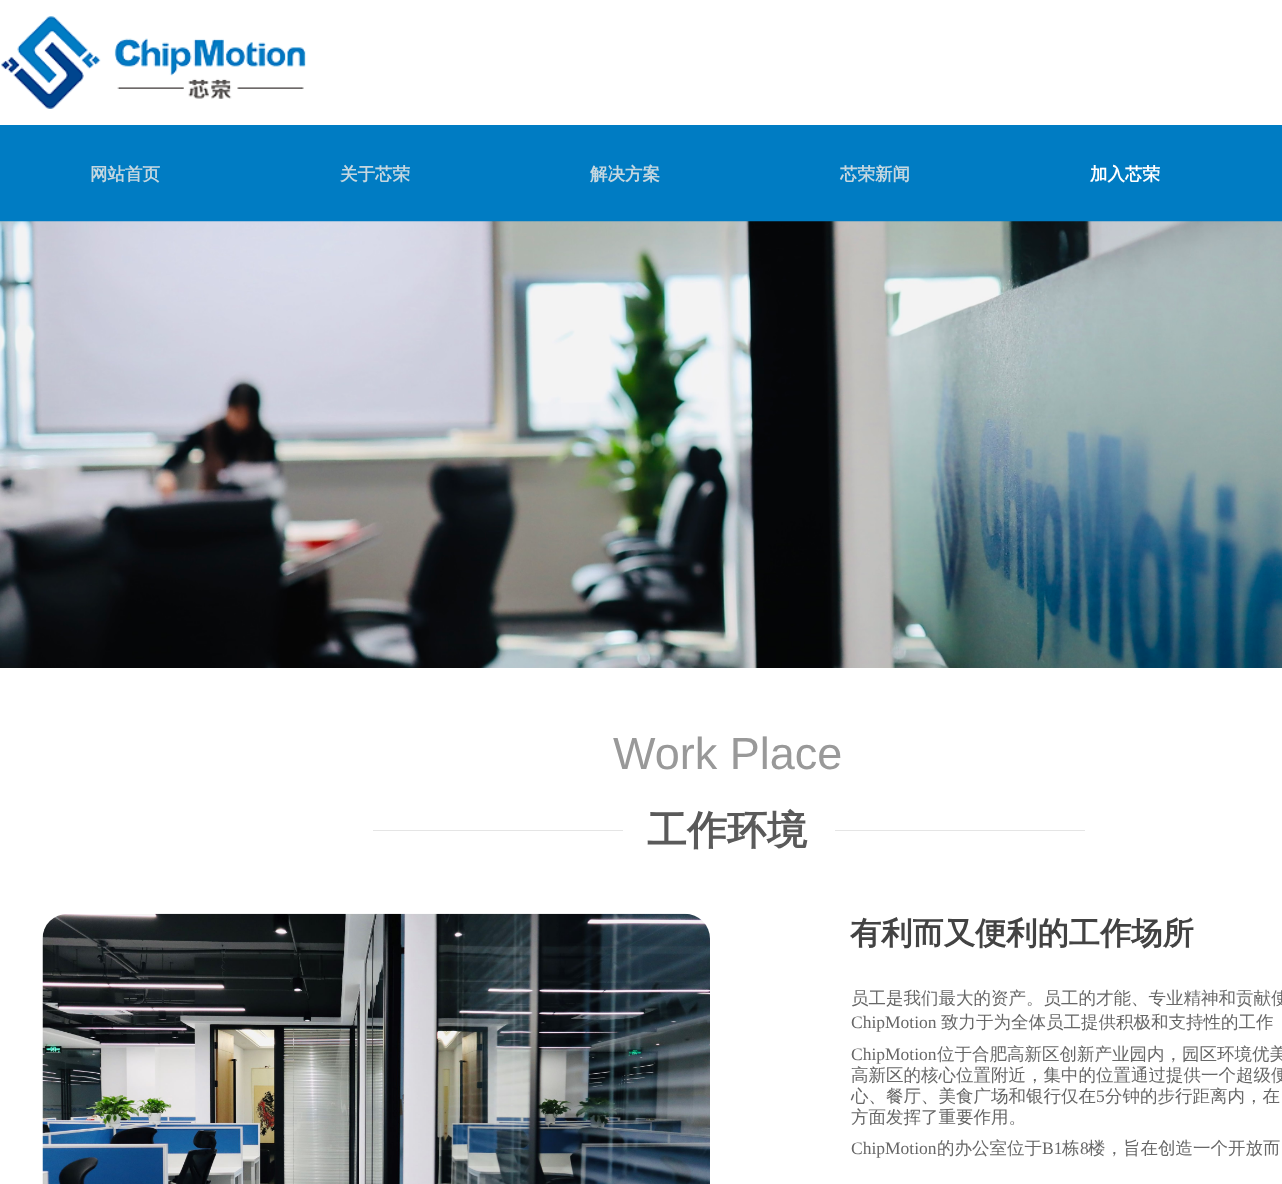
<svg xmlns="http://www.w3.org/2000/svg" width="1282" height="1184">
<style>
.a{font:bold 17.5px WenQuanYi Zen Hei;fill:#c4d7e0}
.b{font:bold 17.5px WenQuanYi Zen Hei;fill:#fff}
.c{font:45px Liberation Sans;fill:#999}
.d{font:bold 40px WenQuanYi Zen Hei;fill:#5a5a5a}
.e{font:bold 31.25px WenQuanYi Zen Hei;fill:#434343}
.f{font:500 17.5px WenQuanYi Zen Hei;fill:#676767}
.g{font:17.5px Liberation Serif;fill:#676767}
</style>
<rect width="100%" height="100%" fill="#fff"/>
<image href="1.png" x="1" y="16" width="305" height="93"/>
<path fill="#007cc3" d="M0 125h1282v97H0z"/>
<image href="2.png" x="0" y="221" width="1282" height="447"/>
<path fill="#e5e5e5" d="M373 830h250v1H373z"/>
<path fill="#e5e5e5" d="M835 830h250v1H835z"/>
<image href="3.png" x="42" y="913" width="668" height="271"/>
<text class="a" x="90" y="180">网站首页</text>
<text class="a" x="340" y="180">关于芯荣</text>
<text class="a" x="590" y="180">解决方案</text>
<text class="a" x="840" y="180">芯荣新闻</text>
<text class="b" x="1090" y="180">加入芯荣</text>
<text class="c" x="613" y="769">Work Place</text>
<text class="d" x="647" y="844">工作环境</text>
<text class="e" x="850" y="944">有利而又便利的工作场所</text>
<text class="f" x="851" y="1004">员工是我们最大的资产。员工的才能、专业精神和贡献使</text>
<text class="g" x="851" y="1028">ChipMotion</text>
<text class="f" x="941" y="1028">致力于为全体员工提供积极和支持性的工作</text>
<text class="g" x="851" y="1060">ChipMotion</text>
<text class="f" x="937" y="1060">位于合肥高新区创新产业园内，园区环境优美</text>
<text class="f" x="851" y="1081">高新区的核心位置附近，集中的位置通过提供一个超级便</text>
<text class="f" x="851" y="1102">心、餐厅、美食广场和银行仅在</text>
<text class="g" x="1096" y="1102">5</text>
<text class="f" x="1105" y="1102">分钟的步行距离内，在</text>
<text class="f" x="851" y="1123">方面发挥了重要作用。</text>
<text class="g" x="851" y="1154">ChipMotion</text>
<text class="f" x="937" y="1154">的办公室位于</text>
<text class="g" x="1042" y="1154">B1</text>
<text class="f" x="1062" y="1154">栋</text>
<text class="g" x="1080" y="1154">8</text>
<text class="f" x="1088" y="1154">楼，旨在创造一个开放而</text>
</svg>
